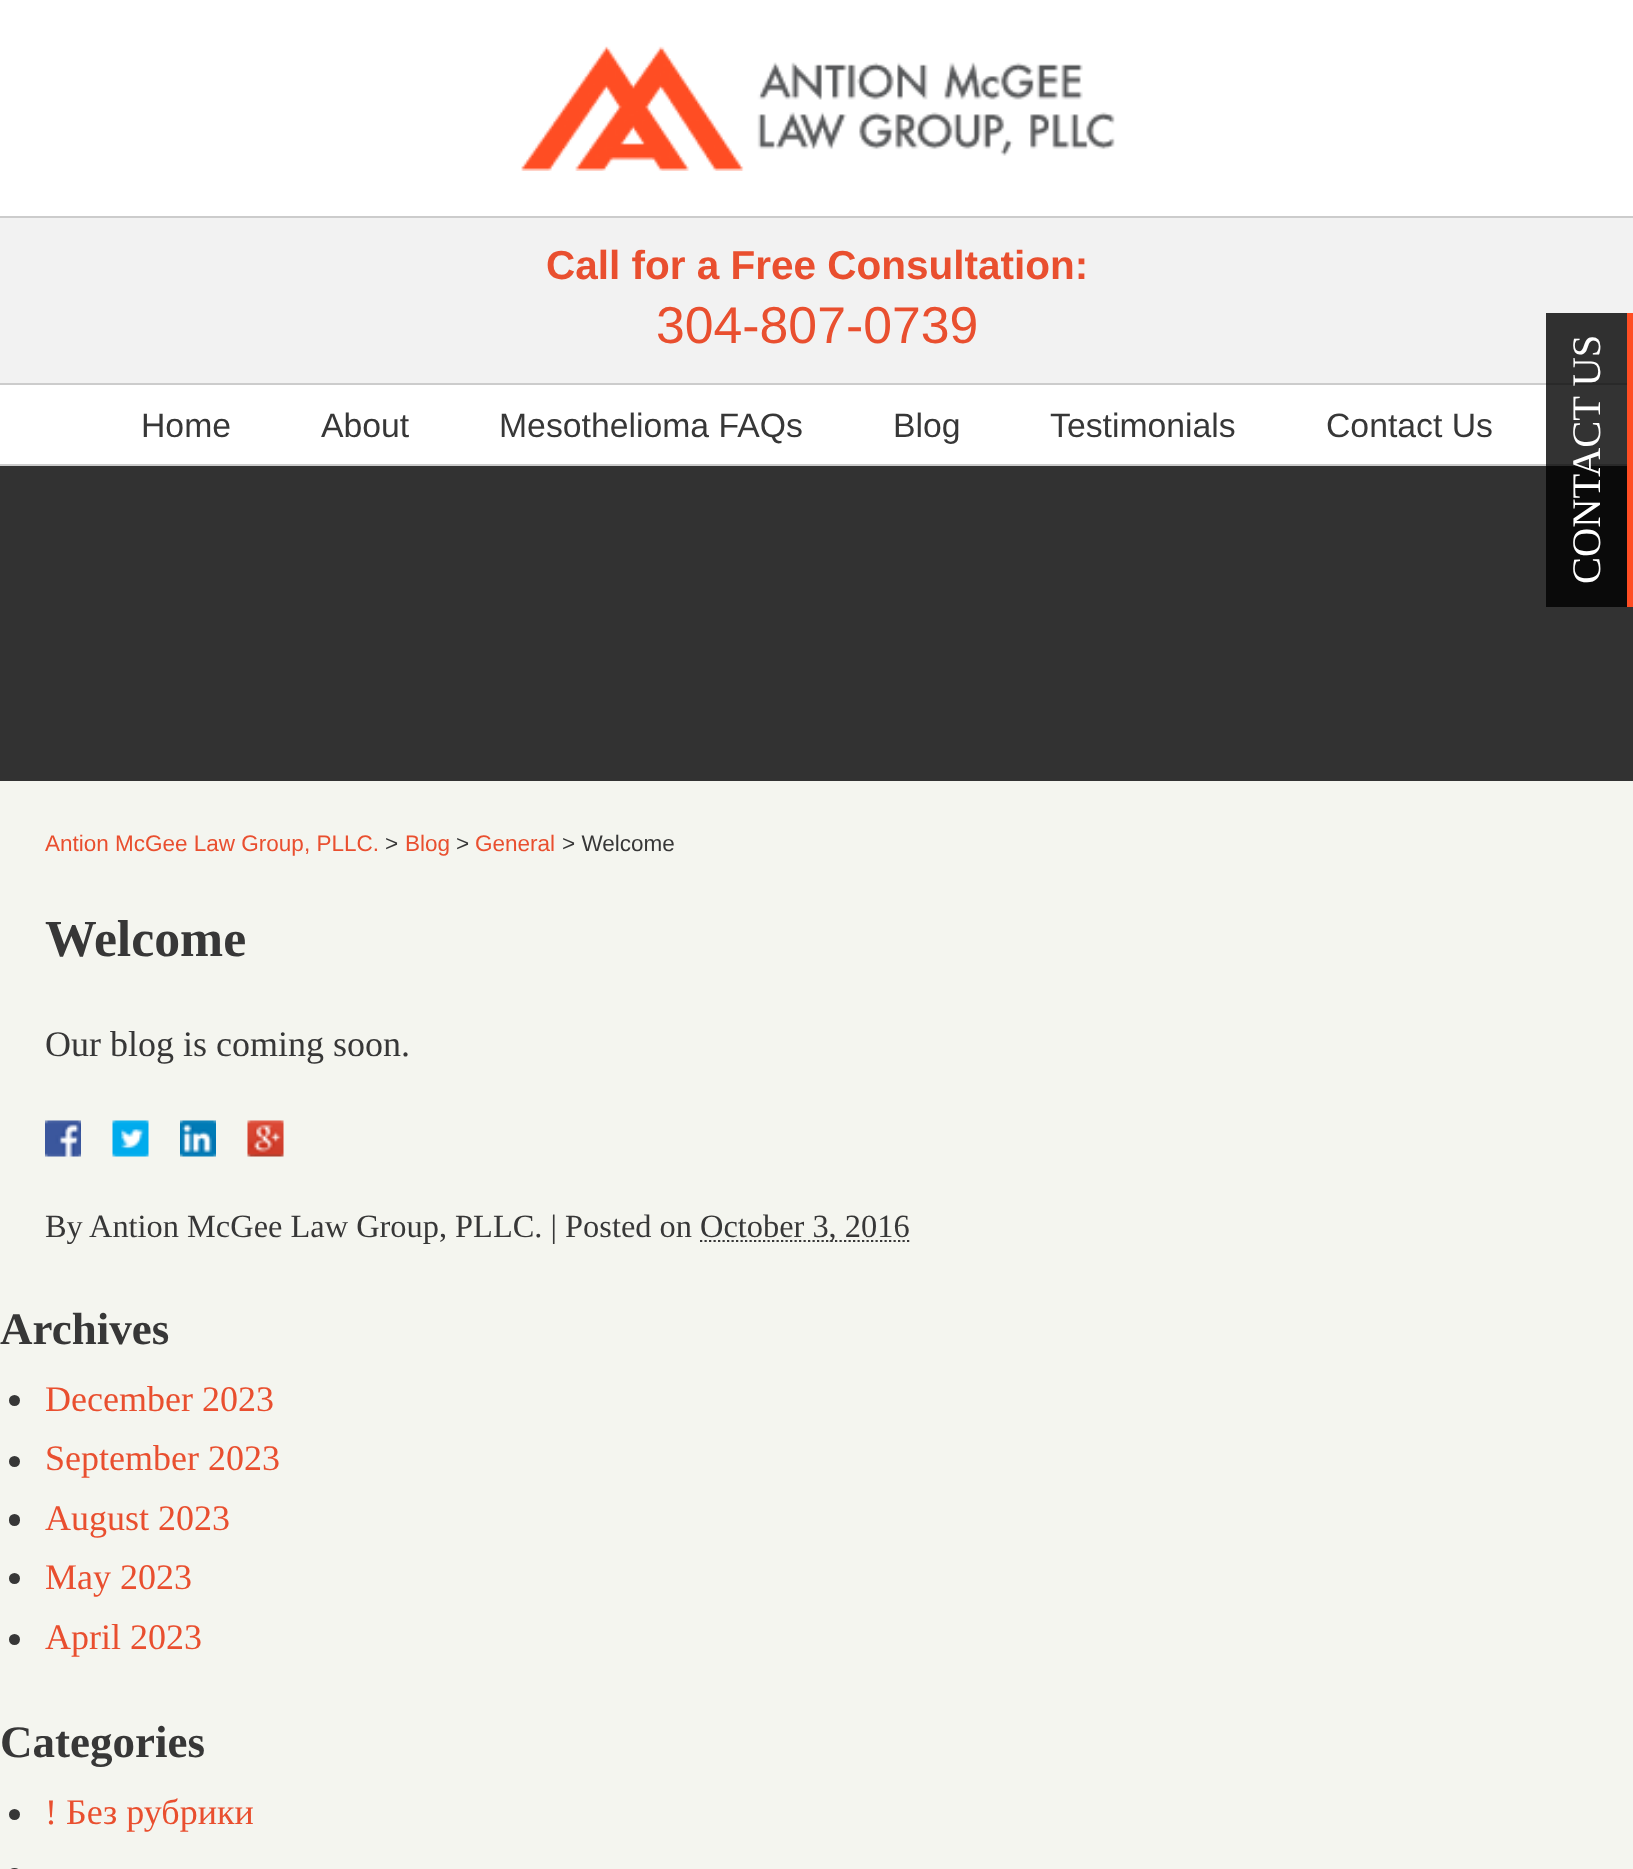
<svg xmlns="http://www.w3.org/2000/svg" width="1633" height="1869">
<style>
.a{font:bold 40.5px Liberation Sans;fill:#e94f2f}
.b{font:51.75px Liberation Sans;fill:#e94f2f}
.c{font:33.75px Liberation Sans;fill:#373737}
.d{font:22.5px Liberation Sans;fill:#e94f2f}
.e{font:22.5px Liberation Sans;fill:#373737}
.f{font:bold 51.75px Liberation Serif;fill:#373737}
.g{font:36px Liberation Serif;fill:#373737}
.h{font:32.4px Liberation Serif;fill:#373737}
.i{font:bold 45px Liberation Serif;fill:#373737}
.j{font:36px Liberation Serif;fill:#e94f2f}
.k{font:40.5px Liberation Serif;fill:#fff}
</style>
<rect width="100%" height="100%" fill="#fff"/>
<path fill="#333" d="M1546 385h81v79H1546z"/>
<image href="1.png" x="521" y="46" width="594" height="125"/>
<path fill="#f2f2f2" d="M0 218h1633v165H0z"/>
<path fill="#303030" d="M1546 313h81v70H1546z"/>
<path fill="#ccc" d="M0 216h1633v2H0z"/>
<path fill="#ccc" d="M0 383h1546v2H0z"/>
<path fill="#292929" d="M1546 383h87v2H1546z"/>
<path fill="#ccc" d="M0 464h1546v2H0z"/>
<path fill="#292929" d="M1546 464h87v2H1546z"/>
<path fill="#323232" d="M0 466h1633v315H0z"/>
<path fill="#0a0a0a" d="M1546 466h81v141H1546z"/>
<path fill="#f4f5ef" d="M0 781h1633v1088H0z"/>
<image href="2.png" x="45" y="1120" width="36" height="37"/>
<image href="3.png" x="112" y="1120" width="37" height="37"/>
<image href="4.png" x="180" y="1120" width="36" height="37"/>
<image href="5.png" x="247" y="1120" width="37" height="37"/>
<path fill="none" stroke="#373737" stroke-width="2.2" stroke-dasharray="2.25 2.25" d="M700 1241h209.5"/>
<circle fill="#373737" cx="14.5" cy="1400.5" r="5.5"/>
<circle fill="#373737" cx="14.5" cy="1461.5" r="5.5"/>
<rect fill="#373737" x="9" y="1514" width="11" height="12" rx="5.5"/>
<circle fill="#373737" cx="14.5" cy="1578.5" r="5.5"/>
<circle fill="#373737" cx="14.5" cy="1639.5" r="5.5"/>
<circle fill="#373737" cx="14.5" cy="1814.5" r="5.5"/>
<rect fill="#373737" x="9" y="1868" width="11" height="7" rx="5.5"/>
<path fill="#ff4d23" d="M1627 313h6v294H1627z"/>
<text class="a" x="546" y="279">Call for a Free Consultation:</text>
<text class="b" x="656" y="343">304-807-0739</text>
<text class="c" x="141" y="437">Home</text>
<text class="c" x="321" y="437">About</text>
<text class="c" x="499" y="437">Mesothelioma FAQs</text>
<text class="c" x="893" y="437">Blog</text>
<text class="c" x="1050" y="437">Testimonials</text>
<text class="c" x="1326" y="437">Contact Us</text>
<text class="d" x="45" y="851">Antion McGee Law Group, PLLC.</text>
<text class="e" x="385" y="851">&gt;</text>
<text class="d" x="405" y="851">Blog</text>
<text class="e" x="456" y="851">&gt;</text>
<text class="d" x="475" y="851">General</text>
<text class="e" x="562" y="851">&gt; Welcome</text>
<text class="f" x="45" y="956">Welcome</text>
<text class="g" x="45" y="1056">Our blog is coming soon.</text>
<text class="h" x="45" y="1237">By</text>
<text class="h" x="89" y="1237">Antion McGee Law Group, PLLC. | Posted on</text>
<text class="h" x="700" y="1237">October 3, 2016</text>
<text class="i" x="0" y="1344">Archives</text>
<text class="j" x="45" y="1411">December 2023</text>
<text class="j" x="45" y="1470">September 2023</text>
<text class="j" x="45" y="1530">August 2023</text>
<text class="j" x="45" y="1589">May 2023</text>
<text class="j" x="45" y="1649">April 2023</text>
<text class="i" x="0" y="1757">Categories</text>
<text class="j" x="45" y="1824">! Без рубрики</text>
<text class="k" x="1600" y="584" transform="rotate(-90 1600 584)">CONTACT US</text>
</svg>
